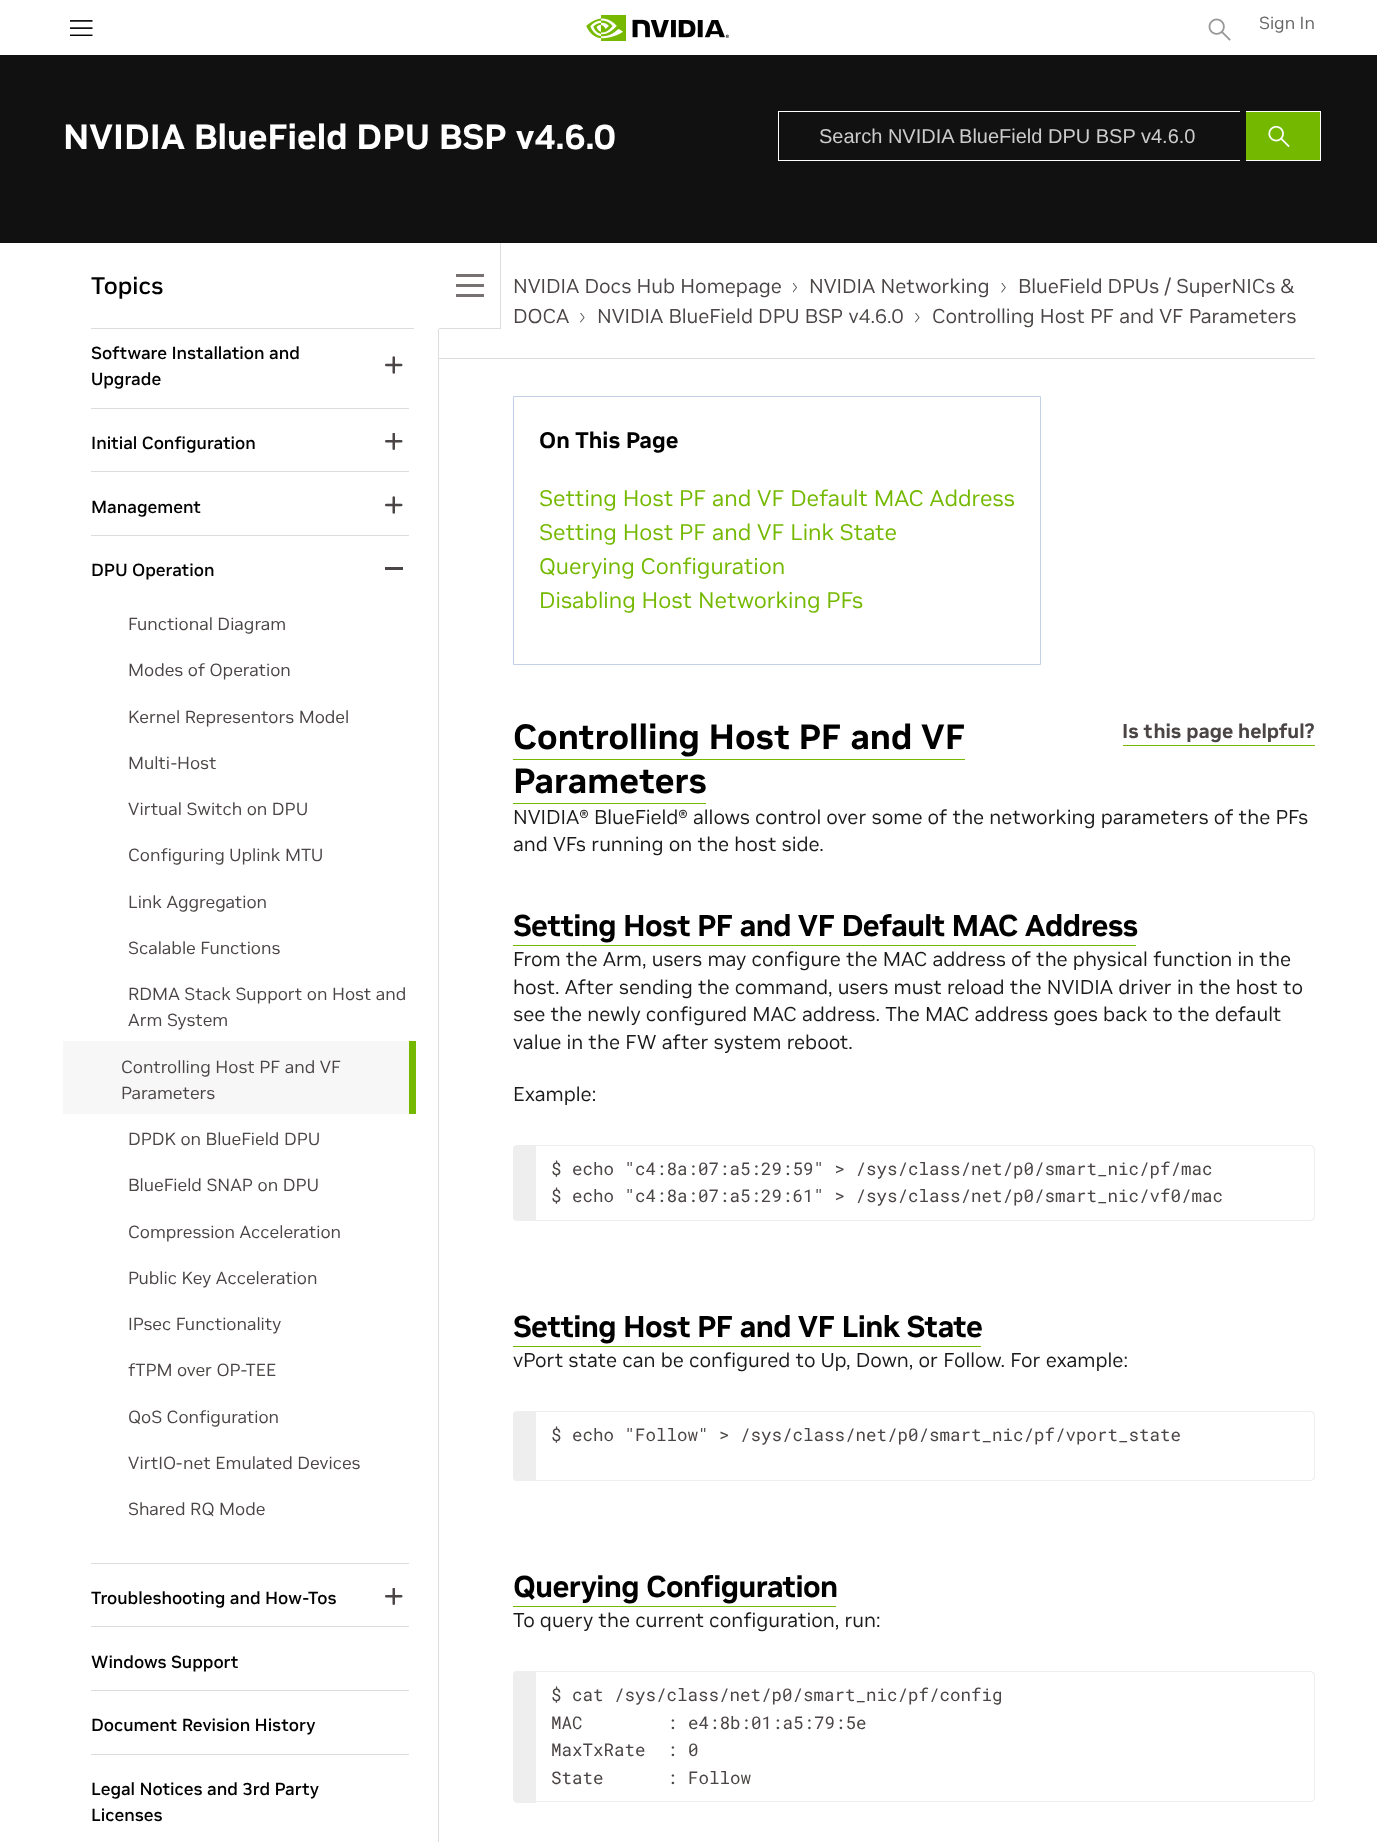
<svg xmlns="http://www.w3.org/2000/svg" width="1377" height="1842">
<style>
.a{font:17.5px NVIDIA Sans;fill:#666}
.b{font:bold 35px NVIDIA Sans;fill:#fff}
.c{font:20px Liberation Sans;fill:#ccc}
.d{font:500 24px NVIDIA Sans;fill:#000}
.e{font:500 17.5px NVIDIA Sans;fill:#000}
.f{font:17.5px NVIDIA Sans;fill:#4b4545}
.g{font:20px NVIDIA Sans;fill:#4b4545}
.h{font:bold 22.5px NVIDIA Sans;fill:#000}
.i{font:22.5px NVIDIA Sans;fill:#74b900}
.j{font:bold 35px NVIDIA Sans;fill:#000}
.k{font:bold 20px NVIDIA Sans;fill:#4b4545}
.l{font:20px NVIDIA Sans;fill:#1a1a1a}
.m{font:bold 30px NVIDIA Sans;letter-spacing:-0.6px;fill:#000}
.n{font:17.5px Roboto Mono;fill:#4b4545}
</style>
<defs>
<clipPath id="clip1"><path d="M513 1145h802v76H513z"/></clipPath>
<clipPath id="clip2"><path d="M513 1411h802v70H513z"/></clipPath>
<clipPath id="clip3"><path d="M513 1671h802v132H513z"/></clipPath>
</defs>
<rect width="100%" height="100%" fill="#fff"/>
<image href="1.png" x="70" y="20" width="23" height="16"/>
<image href="2.png" x="586" y="15" width="143" height="26"/>
<image href="3.png" x="1208" y="18" width="23" height="23"/>
<path fill="#111" d="M0 55h1377v188H0z"/>
<path fill="#fff" d="M778 111h462v1H778z"/>
<path fill="#fff" d="M778 160h462v1H778z"/>
<path fill="#fff" d="M778 111h1v50H778z"/>
<path fill="#74b900" d="M1246 112h74v48H1246z"/>
<path fill="#fff" d="M1246 111h75v1H1246z"/>
<path fill="#fff" d="M1320 111h1v50H1320z"/>
<path fill="#fff" d="M1246 160h75v1H1246z"/>
<image href="4.png" x="1268" y="125" width="22" height="23"/>
<path fill="#ddd" d="M91 328h323v1H91z"/>
<path fill="#ddd" d="M500 243h1v86H500z"/>
<path fill="#ddd" d="M439 328h62v1H439z"/>
<path fill="#787171" d="M456 274h28v3H456z"/>
<path fill="#787171" d="M456 284h28v3H456z"/>
<path fill="#787171" d="M456 294h28v3H456z"/>
<path fill="#ddd" d="M438 329h1v1513H438z"/>
<image href="5.png" x="385" y="356" width="18" height="18"/>
<path fill="#ddd" d="M91 408h318v1H91z"/>
<image href="6.png" x="385" y="433" width="18" height="17"/>
<path fill="#ddd" d="M91 471h318v1H91z"/>
<image href="5.png" x="385" y="496" width="18" height="18"/>
<path fill="#ddd" d="M91 535h318v1H91z"/>
<path fill="#4b4545" d="M385 567h18v3H385z"/>
<path fill="#f7f7f7" d="M63 1041h346v73H63z"/>
<path fill="#74b900" d="M409 1041h7v73H409z"/>
<path fill="#ddd" d="M91 1563h318v1H91z"/>
<image href="6.png" x="385" y="1588" width="18" height="17"/>
<path fill="#ddd" d="M91 1626h318v1H91z"/>
<path fill="#ddd" d="M91 1690h318v1H91z"/>
<path fill="#ddd" d="M91 1754h318v1H91z"/>
<image href="7.png" x="793" y="283" width="4" height="10"/>
<image href="8.png" x="1001" y="283" width="5" height="10"/>
<image href="9.png" x="580" y="313" width="5" height="10"/>
<image href="9.png" x="915" y="313" width="5" height="10"/>
<path fill="#ddd" d="M439 358h876v1H439z"/>
<path fill="none" stroke="#c2d1e8" d="M513.5 396.5h527v268H513.5z"/>
<path fill="#74b900" d="M513 759h452v1H513z"/>
<path fill="#74b900" d="M513 803h193v1H513z"/>
<path fill="#74b900" d="M1123 745h192v1H1123z"/>
<path fill="#74b900" d="M513 945h623v1H513z"/>
<path fill="#eee" d="M518 1145h18v76h-18c-3 0-5-2-5-5v-66c0-3 2-5 5-5z"/>
<g clip-path="url(#clip1)">
<path fill="#eee" fill-rule="evenodd" d="M518 1145h18v76h-18c-3 0-6-2-6-5v-66c0-3 3-5 6-5zm0 1h18v74h-18c-3 0-4-2-4-4v-66c0-2 1-4 4-4z"/>
</g>
<path fill="#eee" fill-rule="evenodd" d="M536 1145h774c3 0 5 2 5 5v66c0 3-2 5-5 5h-774zm0 1h774c2 0 4 2 4 4v66c0 2-2 4-4 4h-774z"/>
<path fill="#74b900" d="M513 1346h468v1H513z"/>
<path fill="#eee" d="M518 1411h18v70h-18c-3 0-5-2-5-5v-60c0-3 2-5 5-5z"/>
<g clip-path="url(#clip2)">
<path fill="#eee" fill-rule="evenodd" d="M518 1411h18v70h-18c-3 0-6-2-6-5v-60c0-3 3-5 6-5zm0 1h18v68h-18c-3 0-4-2-4-4v-60c0-2 1-4 4-4z"/>
</g>
<path fill="#eee" fill-rule="evenodd" d="M536 1411h774c3 0 5 2 5 5v60c0 3-2 5-5 5h-774zm0 1h774c2 0 4 2 4 4v60c0 2-2 4-4 4h-774z"/>
<path fill="#74b900" d="M513 1606h323v1H513z"/>
<path fill="#eee" d="M518 1671h18v132h-18c-3 0-5-2-5-5v-122c0-3 2-5 5-5z"/>
<g clip-path="url(#clip3)">
<path fill="#eee" fill-rule="evenodd" d="M518 1671h18v131h-18c-3 0-6-2-6-4v-122c0-3 3-5 6-5zm0 1h18v129h-18c-3 0-4-1-4-3v-122c0-2 1-4 4-4z"/>
</g>
<path fill="#eee" fill-rule="evenodd" d="M536 1671h774c3 0 5 2 5 5v122c0 2-2 4-5 4h-774zm0 1h774c2 0 4 2 4 4v122c0 2-2 3-4 3h-774z"/>
<text class="a" x="1259" y="29">Sign In</text>
<text class="b" x="63" y="149">NVIDIA BlueField DPU BSP v4.6.0</text>
<text class="c" x="819" y="143">Search NVIDIA BlueField DPU BSP v4.6.0</text>
<text class="d" x="91" y="294">Topics</text>
<text class="e" x="91" y="359">Software Installation and</text>
<text class="e" x="91" y="385">Upgrade</text>
<text class="e" x="91" y="449">Initial Configuration</text>
<text class="e" x="91" y="513">Management</text>
<text class="e" x="91" y="576">DPU Operation</text>
<text class="f" x="128" y="630">Functional Diagram</text>
<text class="f" x="128" y="676">Modes of Operation</text>
<text class="f" x="128" y="723">Kernel Representors Model</text>
<text class="f" x="128" y="769">Multi-Host</text>
<text class="f" x="128" y="815">Virtual Switch on DPU</text>
<text class="f" x="128" y="861">Configuring Uplink MTU</text>
<text class="f" x="128" y="908">Link Aggregation</text>
<text class="f" x="128" y="954">Scalable Functions</text>
<text class="f" x="128" y="1000">RDMA Stack Support on Host and</text>
<text class="f" x="128" y="1026">Arm System</text>
<text class="f" x="121" y="1073">Controlling Host PF and VF</text>
<text class="f" x="121" y="1099">Parameters</text>
<text class="f" x="128" y="1145">DPDK on BlueField DPU</text>
<text class="f" x="128" y="1191">BlueField SNAP on DPU</text>
<text class="f" x="128" y="1238">Compression Acceleration</text>
<text class="f" x="128" y="1284">Public Key Acceleration</text>
<text class="f" x="128" y="1330">IPsec Functionality</text>
<text class="f" x="128" y="1376">fTPM over OP-TEE</text>
<text class="f" x="128" y="1423">QoS Configuration</text>
<text class="f" x="128" y="1469">VirtIO-net Emulated Devices</text>
<text class="f" x="128" y="1515">Shared RQ Mode</text>
<text class="e" x="91" y="1604">Troubleshooting and How-Tos</text>
<text class="e" x="91" y="1668">Windows Support</text>
<text class="e" x="91" y="1731">Document Revision History</text>
<text class="e" x="91" y="1795">Legal Notices and 3rd Party</text>
<text class="e" x="91" y="1821">Licenses</text>
<text class="g" x="513" y="293">NVIDIA Docs Hub Homepage</text>
<text class="g" x="809" y="293">NVIDIA Networking</text>
<text class="g" x="1018" y="293">BlueField DPUs / SuperNICs &amp;</text>
<text class="g" x="513" y="323">DOCA</text>
<text class="g" x="597" y="323">NVIDIA BlueField DPU BSP v4.6.0</text>
<text class="g" x="932" y="323">Controlling Host PF and VF Parameters</text>
<text class="h" x="539" y="448">On This Page</text>
<text class="i" x="539" y="506">Setting Host PF and VF Default MAC Address</text>
<text class="i" x="539" y="540">Setting Host PF and VF Link State</text>
<text class="i" x="539" y="574">Querying Configuration</text>
<text class="i" x="539" y="608">Disabling Host Networking PFs</text>
<text class="j" x="513" y="749">Controlling Host PF and VF</text>
<text class="j" x="513" y="793">Parameters</text>
<text class="k" x="1122" y="738">Is this page helpful?</text>
<text class="l" x="513" y="824">NVIDIA® BlueField® allows control over some of the networking parameters of the PFs</text>
<text class="l" x="513" y="851">and VFs running on the host side.</text>
<text class="m" x="513" y="936">Setting Host PF and VF Default MAC Address</text>
<text class="l" x="513" y="966">From the Arm, users may configure the MAC address of the physical function in the</text>
<text class="l" x="513" y="994">host. After sending the command, users must reload the NVIDIA driver in the host to</text>
<text class="l" x="513" y="1021">see the newly configured MAC address. The MAC address goes back to the default</text>
<text class="l" x="513" y="1049">value in the FW after system reboot.</text>
<text class="l" x="513" y="1101">Example:</text>
<text class="n" x="551" y="1175">$ echo "c4:8a:07:a5:29:59" &gt; /sys/class/net/p0/smart_nic/pf/mac</text>
<text class="n" x="551" y="1202">$ echo "c4:8a:07:a5:29:61" &gt; /sys/class/net/p0/smart_nic/vf0/mac</text>
<text class="m" x="513" y="1337">Setting Host PF and VF Link State</text>
<text class="l" x="513" y="1367">vPort state can be configured to Up, Down, or Follow. For example:</text>
<text class="n" x="551" y="1441">$ echo "Follow" &gt; /sys/class/net/p0/smart_nic/pf/vport_state</text>
<text class="m" x="513" y="1597">Querying Configuration</text>
<text class="l" x="513" y="1627">To query the current configuration, run:</text>
<text class="n" x="551" y="1701">$ cat /sys/class/net/p0/smart_nic/pf/config</text>
<text class="n" x="551" y="1729">MAC</text>
<text class="n" x="667" y="1729">: e4:8b:01:a5:79:5e</text>
<text class="n" x="551" y="1756">MaxTxRate</text>
<text class="n" x="667" y="1756">: 0</text>
<text class="n" x="551" y="1784">State</text>
<text class="n" x="667" y="1784">: Follow</text>
</svg>
